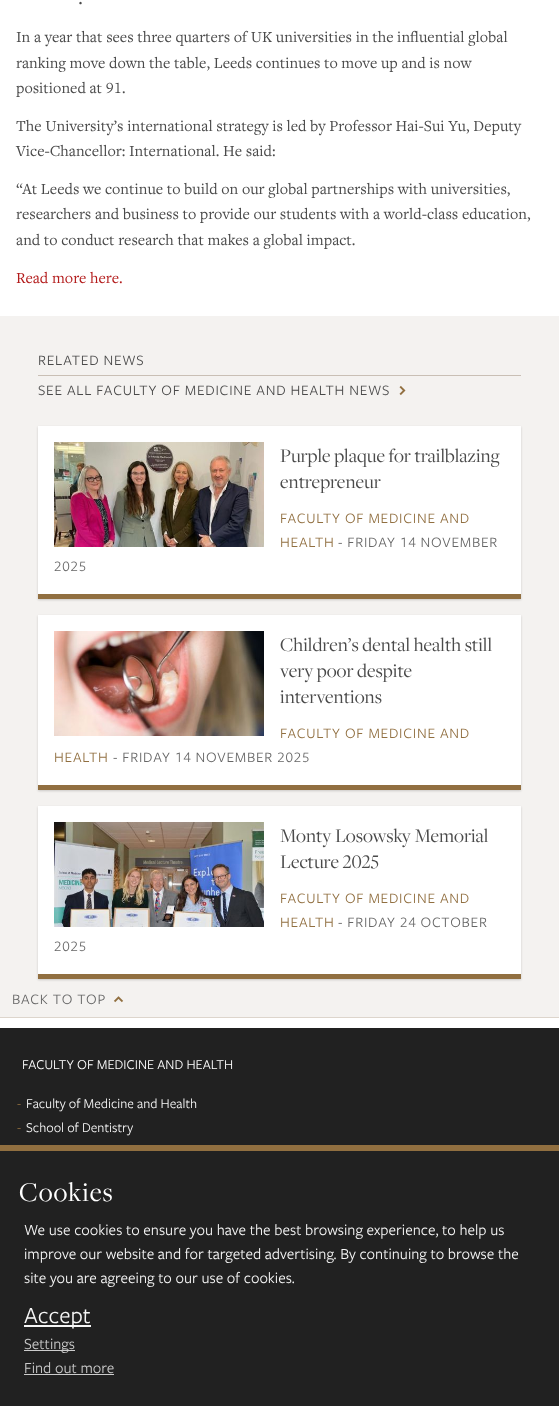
<svg xmlns="http://www.w3.org/2000/svg" width="559" height="1406">
<style>
.a{font:20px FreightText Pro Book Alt;fill:#4a4a4a}
.b{font:16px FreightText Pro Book;fill:#4a4a4a}
.c{font:16px FreightText Pro Book Alt;fill:#4a4a4a}
.d{font:16px FreightText Pro Book;fill:#b31b1b}
.e{font:15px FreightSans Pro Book;letter-spacing:0.75px;fill:#4a4a4a}
.f{font:20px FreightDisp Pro;fill:#4a4a4a}
.g{font:15px FreightSans Pro Book;letter-spacing:0.75px;fill:#916f40}
.h{font:15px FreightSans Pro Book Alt;letter-spacing:0.75px;fill:#666}
.i{font:20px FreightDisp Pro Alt;fill:#4a4a4a}
.j{font:15px FreightSans Pro Book;letter-spacing:0.75px;fill:#666}
.k{font:14px FreightSans Pro Book;fill:#fff}
.l{font:14px FreightSans Pro Book;fill:#916f40}
.m{font:14px FreightSans Pro Book;fill:#f7f7f7}
.n{font:28px FreightDisp Pro;letter-spacing:1px;fill:#fff}
.o{font:16px FreightSans Pro Book;fill:#f7f7f7}
.p{font:24px FreightSans Pro Book;fill:#f7f7f7}
.q{font:16px FreightSans Pro Book;fill:#ccc}
</style>
<rect width="100%" height="100%" fill="#fff"/>
<path fill="#f4f2f0" d="M0 316h559v701H0z"/>
<path fill="#c9bfb5" d="M38 375h483v1H38z"/>
<image href="1.png" x="399" y="385" width="7" height="11"/>
<path fill="#0000002b" filter="blur(1px)" d="M38 427h483v173H38z"/>
<path fill="#fff" d="M38 426h483v168H38z"/>
<path fill="#916f40" d="M38 594h483v5H38z"/>
<image href="2.png" x="54" y="442" width="210" height="105"/>
<path fill="#0000002b" filter="blur(1px)" d="M38 616h483v175H38z"/>
<path fill="#fff" d="M38 615h483v170H38z"/>
<path fill="#916f40" d="M38 785h483v5H38z"/>
<image href="3.png" x="54" y="631" width="210" height="105"/>
<image href="4.png" x="66" y="634" width="157" height="95"/>
<path fill="#0000002b" filter="blur(1px)" d="M38 807h483v173H38z"/>
<path fill="#fff" d="M38 806h483v168H38z"/>
<path fill="#916f40" d="M38 974h483v5H38z"/>
<image href="5.png" x="54" y="822" width="210" height="105"/>
<image href="6.png" x="113" y="996" width="11" height="7"/>
<path fill="#ddd5cc" d="M0 1017h559v1H0z"/>
<path fill="#212121" d="M0 1028h559v117H0z"/>
<path fill="#212121" d="M0 1151h559v255H0z"/>
<path fill="#916f40" d="M0 1145h559v6H0z"/>
<path fill="#f7f7f7" d="M24 1325h67v2H24z"/>
<path fill="#ccc" d="M24 1350h51v1H24z"/>
<path fill="#ccc" d="M24 1374h90v1H24z"/>
<text class="a" x="78" y="4">.</text>
<text class="b" x="16" y="42">In a year that sees three quarters of UK universities in the influential global</text>
<text class="b" x="16" y="68">ranking move down the table, Leeds continues to move up and is now</text>
<text class="c" x="16" y="93">positioned at 91.</text>
<text class="b" x="16" y="131">The University’s international strategy is led by Professor Hai-Sui Yu, Deputy</text>
<text class="b" x="16" y="156">Vice-Chancellor: International. He said:</text>
<text class="b" x="16" y="194">“At Leeds we continue to build on our global partnerships with universities,</text>
<text class="b" x="16" y="219">researchers and business to provide our students with a world-class education,</text>
<text class="b" x="16" y="245">and to conduct research that makes a global impact.</text>
<text class="d" x="16" y="283">Read more here.</text>
<text class="e" x="38" y="365">RELATED NEWS</text>
<text class="e" x="38" y="395">SEE ALL FACULTY OF MEDICINE AND HEALTH NEWS</text>
<text class="f" x="280" y="462">Purple plaque for trailblazing</text>
<text class="f" x="280" y="488">entrepreneur</text>
<text class="g" x="280" y="523">FACULTY OF MEDICINE AND</text>
<text class="g" x="280" y="547">HEALTH</text>
<text class="h" x="338" y="547">- FRIDAY 14 NOVEMBER</text>
<text class="h" x="54" y="571">2025</text>
<text class="f" x="280" y="651">Children’s dental health still</text>
<text class="f" x="280" y="677">very poor despite</text>
<text class="f" x="280" y="703">interventions</text>
<text class="g" x="280" y="738">FACULTY OF MEDICINE AND</text>
<text class="g" x="54" y="762">HEALTH</text>
<text class="h" x="113" y="762">- FRIDAY 14 NOVEMBER 2025</text>
<text class="f" x="280" y="842">Monty Losowsky Memorial</text>
<text class="i" x="280" y="868">Lecture 2025</text>
<text class="g" x="280" y="903">FACULTY OF MEDICINE AND</text>
<text class="g" x="280" y="927">HEALTH</text>
<text class="h" x="338" y="927">- FRIDAY 24 OCTOBER</text>
<text class="h" x="54" y="951">2025</text>
<text class="j" x="12" y="1004">BACK TO TOP</text>
<text class="k" x="22" y="1069">FACULTY OF MEDICINE AND HEALTH</text>
<text class="l" x="17" y="1108">-</text>
<text class="m" x="26" y="1108">Faculty of Medicine and Health</text>
<text class="l" x="17" y="1132">-</text>
<text class="m" x="26" y="1132">School of Dentistry</text>
<text class="n" x="19" y="1201">Cookies</text>
<text class="o" x="24" y="1235">We use cookies to ensure you have the best browsing experience, to help us</text>
<text class="o" x="24" y="1259">improve our website and for targeted advertising. By continuing to browse the</text>
<text class="o" x="24" y="1283">site you are agreeing to our use of cookies.</text>
<text class="p" x="24" y="1323">Accept</text>
<text class="q" x="24" y="1349">Settings</text>
<text class="q" x="24" y="1373">Find out more</text>
</svg>
